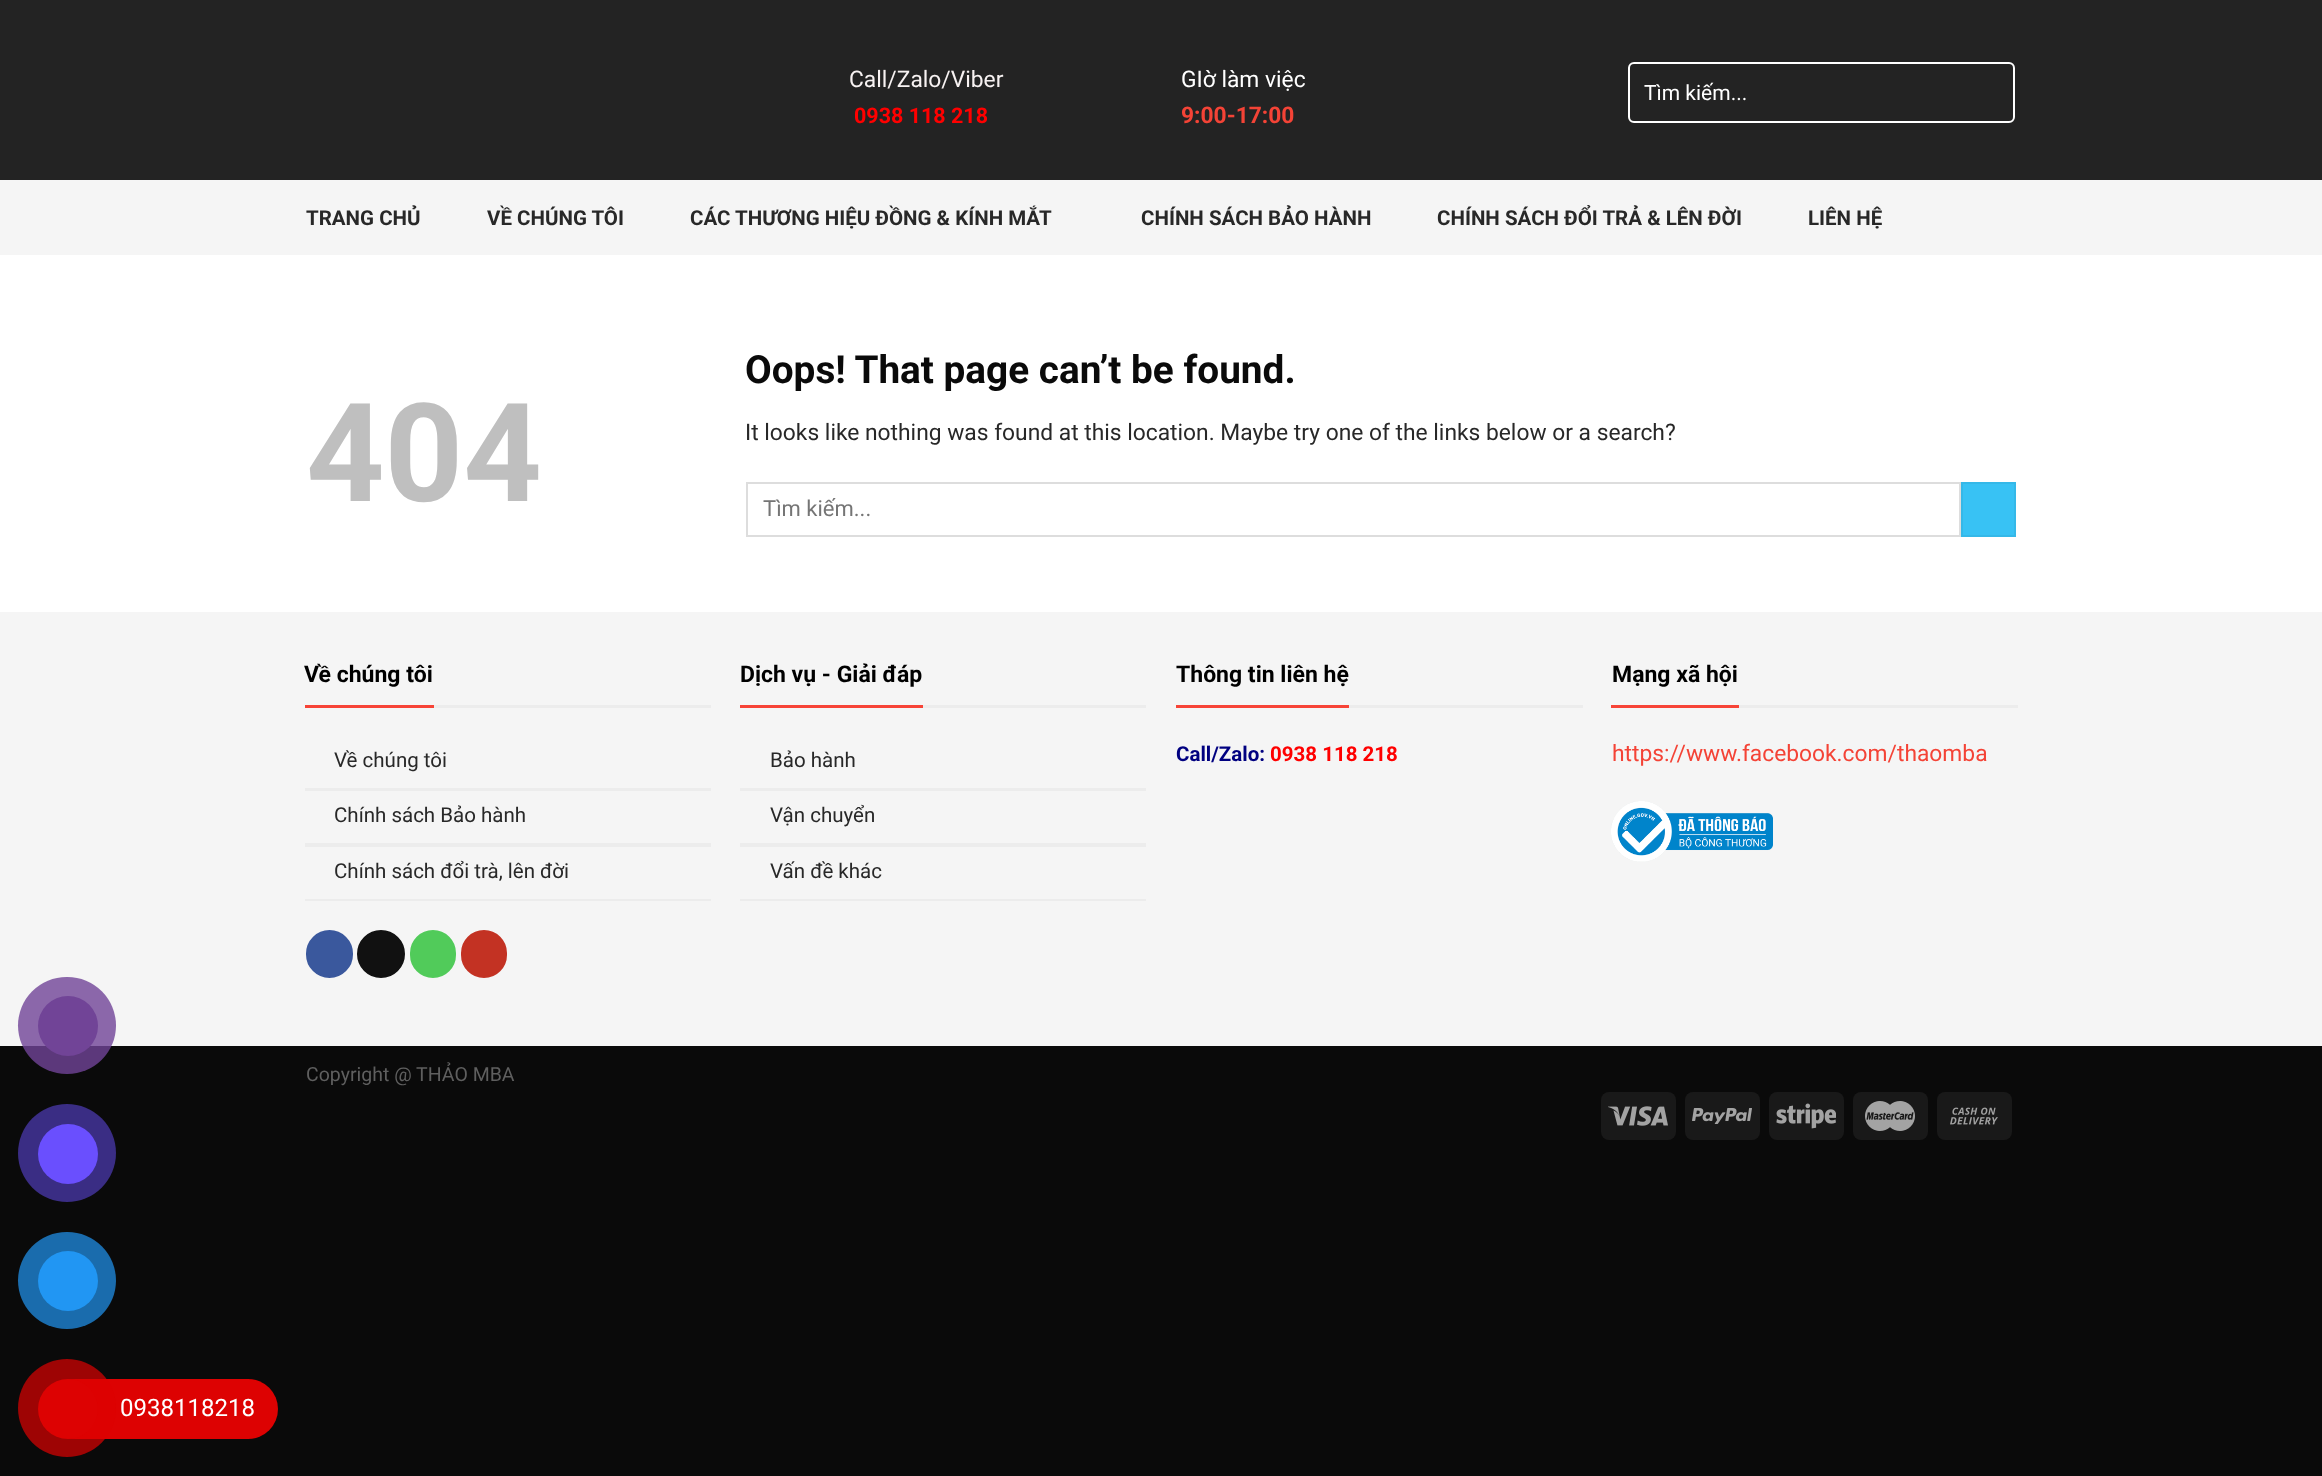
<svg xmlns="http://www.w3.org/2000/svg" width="2322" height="1476">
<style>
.a{font:22.8px Roboto;fill:#f7f2f2}
.b{font:bold 21.5px Roboto;fill:#f00}
.c{font:22.8px Roboto;fill:#fff}
.d{font:bold 22.8px Roboto;fill:#f44336}
.e{font:21px Roboto;fill:#fff}
.f{font:bold 20.5px Roboto;fill:#282828}
.g{font:bold 137px Roboto;fill:#bfbfbf}
.h{font:bold 38.75px Roboto;fill:#0a0a0a}
.i{font:22.8px Roboto;fill:#282828}
.j{font:22px Roboto;fill:#757575}
.k{font:bold 23px Roboto;fill:#000}
.l{font:20.5px Roboto;fill:#282828}
.m{font:bold 20.5px Roboto;fill:#000080}
.n{font:bold 20.5px Roboto;fill:#f00}
.o{font:22.8px Roboto;fill:#f44336}
.p{font:19.5px Roboto;fill:#5f5f5f}
.q{font:24px Roboto;fill:#fff}
</style>
<rect width="100%" height="100%" fill="#0a0a0a"/>
<path fill="#fff" d="M0 255h2322v357H0z"/>
<path fill="#232323" d="M0 0h2322v180H0z"/>
<rect fill="none" stroke="#fff" stroke-width="2" x="1629" y="63" width="385" height="59" rx="5"/>
<path fill="#f5f5f5" d="M0 180h2322v75H0z"/>
<path fill="none" stroke="#ddd" stroke-width="2" d="M747 483h1213v53H747z"/>
<path fill="#38c2f4" stroke="#35b8e8" stroke-width="2" d="M1962 483h53v53H1962z"/>
<path fill="#f5f5f5" d="M0 612h2322v434H0z"/>
<path fill="#ececec" d="M434 705h277v3H434z"/>
<path fill="#f74437" d="M305 705h129v3H305z"/>
<path fill="#ececec" d="M305 788h406v3H305z"/>
<path fill="#ececec" d="M305 843h406v4H305z"/>
<path fill="#ececec" d="M305 899h406v2H305z"/>
<rect fill="#3a589d" stroke="#3a589d" stroke-width="2" x="307" y="931" width="45" height="46" rx="22.5"/>
<circle fill="#111" stroke="#111" stroke-width="2" cx="381" cy="954" r="23"/>
<rect fill="#51cb5a" stroke="#51cb5a" stroke-width="2" x="411" y="931" width="44" height="46" rx="22"/>
<rect fill="#c33223" stroke="#c33223" stroke-width="2" x="462" y="931" width="44" height="46" rx="22"/>
<path fill="#ececec" d="M923 705h223v3H923z"/>
<path fill="#f74437" d="M740 705h183v3H740z"/>
<path fill="#ececec" d="M740 788h406v3H740z"/>
<path fill="#ececec" d="M740 843h406v4H740z"/>
<path fill="#ececec" d="M740 899h406v2H740z"/>
<path fill="#ececec" d="M1349 705h234v3H1349z"/>
<path fill="#f74437" d="M1176 705h173v3H1176z"/>
<path fill="#ececec" d="M1739 705h279v3H1739z"/>
<path fill="#f74437" d="M1611 705h128v3H1611z"/>
<image href="1.png" x="1611" y="801" width="162" height="61"/>
<rect fill="#191919" x="1601" y="1092" width="75" height="48" rx="8"/>
<image href="2.png" x="1608" y="1106" width="60" height="20"/>
<rect fill="#191919" x="1685" y="1092" width="75" height="48" rx="8"/>
<image href="3.png" x="1692" y="1108" width="60" height="16"/>
<rect fill="#191919" x="1769" y="1092" width="75" height="48" rx="8"/>
<image href="4.png" x="1776" y="1103" width="60" height="26"/>
<rect fill="#191919" x="1853" y="1092" width="75" height="48" rx="8"/>
<image href="5.png" x="1865" y="1101" width="50" height="30"/>
<rect fill="#191919" x="1937" y="1092" width="75" height="48" rx="8"/>
<image href="6.png" x="1950" y="1107" width="48" height="18"/>
<rect fill="#714497cc" x="18" y="977" width="98" height="97" rx="48.5"/>
<circle fill="#714497" cx="68" cy="1026" r="30"/>
<circle fill="#3a2d84" cx="67" cy="1153" r="49"/>
<circle fill="#6a4ffe" cx="68" cy="1154" r="30"/>
<rect fill="#1a6cad" x="18" y="1232" width="98" height="97" rx="48.5"/>
<circle fill="#2196f3" cx="68" cy="1281" r="30"/>
<rect fill="#dd0202" x="45" y="1379" width="233" height="60" rx="30"/>
<circle fill="#dd0202b3" cx="67" cy="1408" r="49"/>
<circle fill="#dd0202" cx="68" cy="1409" r="30"/>
<text class="a" x="849" y="87">Call/Zalo/Viber</text>
<text class="b" x="854" y="123">0938 118 218</text>
<text class="c" x="1181" y="87">GIờ làm việc</text>
<text class="d" x="1181" y="123">9:00-17:00</text>
<text class="e" x="1644" y="100">Tìm kiếm...</text>
<text class="f" x="306" y="225">TRANG CHỦ</text>
<text class="f" x="487" y="225">VỀ CHÚNG TÔI</text>
<text class="f" x="690" y="225">CÁC THƯƠNG HIỆU ĐỒNG &amp; KÍNH MẮT</text>
<text class="f" x="1141" y="225">CHÍNH SÁCH BẢO HÀNH</text>
<text class="f" x="1437" y="225">CHÍNH SÁCH ĐỔI TRẢ &amp; LÊN ĐỜI</text>
<text class="f" x="1808" y="225">LIÊN HỆ</text>
<text class="g" x="306" y="501">404</text>
<text class="h" x="745" y="383">Oops! That page can’t be found.</text>
<text class="i" x="745" y="440">It looks like nothing was found at this location. Maybe try one of the links below or a search?</text>
<text class="j" x="763" y="516">Tìm kiếm...</text>
<text class="k" x="304" y="682">Về chúng tôi</text>
<text class="l" x="334" y="767">Về chúng tôi</text>
<text class="l" x="334" y="822">Chính sách Bảo hành</text>
<text class="l" x="334" y="878">Chính sách đổi trà, lên đời</text>
<text class="k" x="740" y="682">Dịch vụ - Giải đáp</text>
<text class="l" x="770" y="767">Bảo hành</text>
<text class="l" x="770" y="822">Vận chuyển</text>
<text class="l" x="770" y="878">Vấn đề khác</text>
<text class="k" x="1176" y="682">Thông tin liên hệ</text>
<text class="m" x="1176" y="761">Call/Zalo:</text>
<text class="n" x="1270" y="761">0938 118 218</text>
<text class="k" x="1612" y="682">Mạng xã hội</text>
<text class="o" x="1612" y="761">https://www.facebook.com/thaomba</text>
<text class="p" x="306" y="1081">Copyright @ THẢO MBA</text>
<text class="q" x="120" y="1416">0938118218</text>
</svg>
